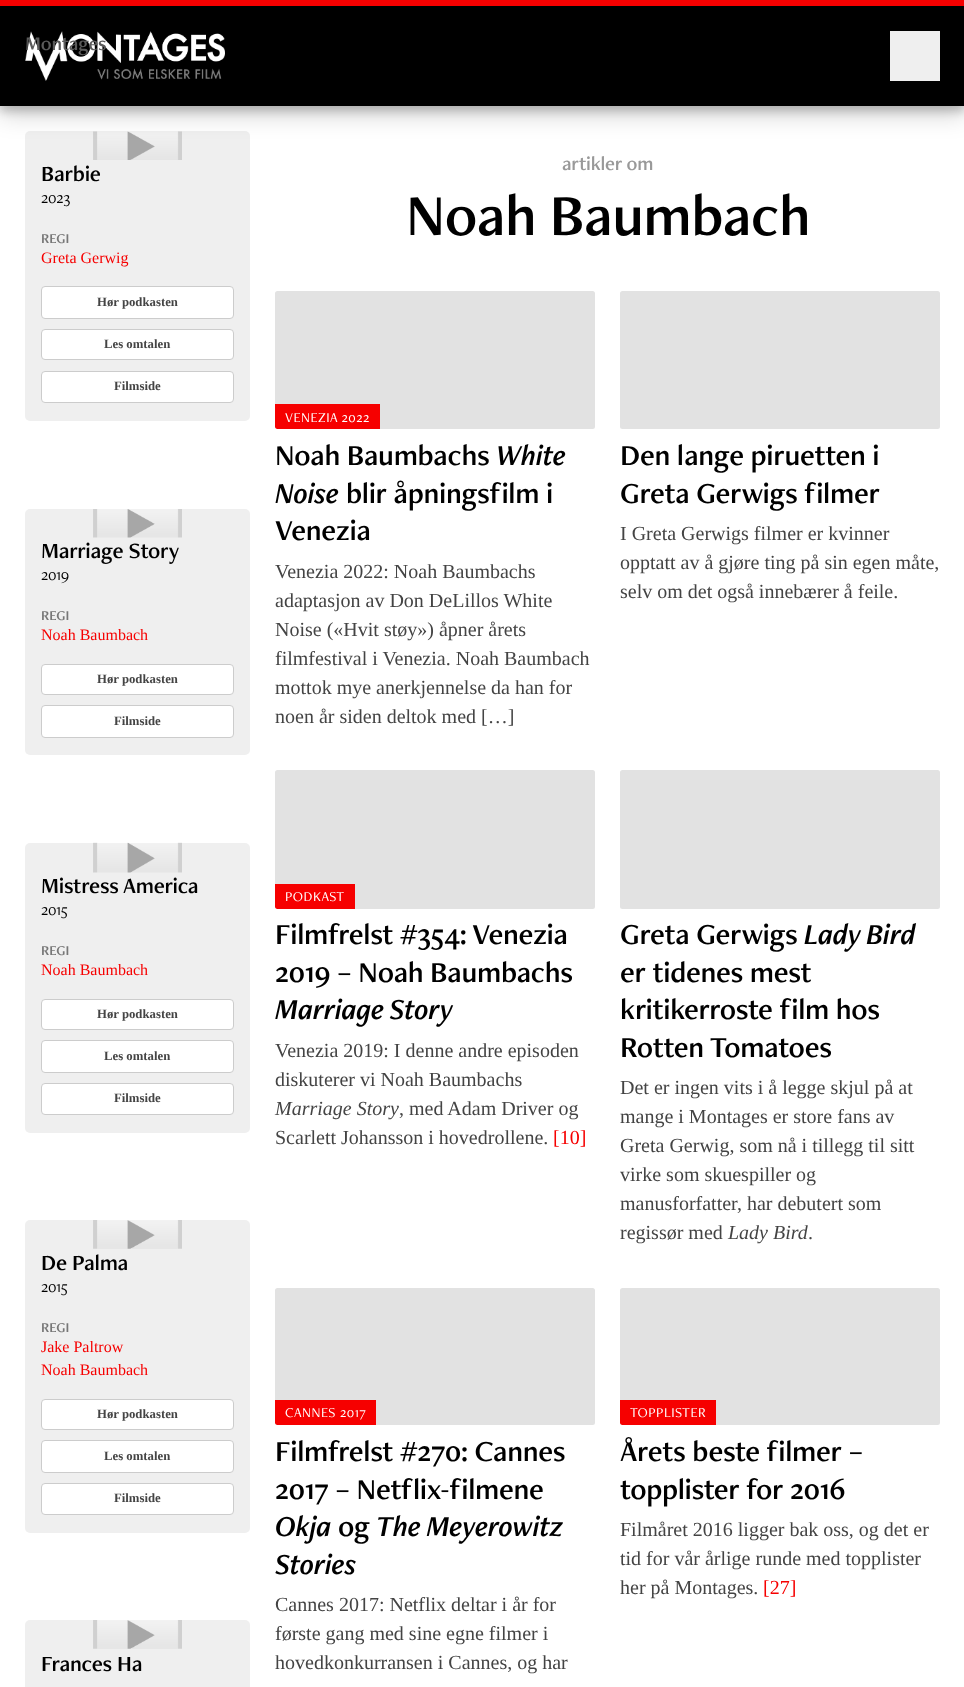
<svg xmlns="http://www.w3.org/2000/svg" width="964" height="1687">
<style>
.a{font:20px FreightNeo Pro;letter-spacing:-0.25px;fill:#5b5b5b}
.b{font:22.5px FreightNeo Pro;letter-spacing:-0.25px;fill:#000}
.c{font:16px 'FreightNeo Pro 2';letter-spacing:-0.25px;fill:#000}
.d{font:14px FreightNeo Pro;fill:#777}
.e{font:16px Liberation Serif;fill:#f60000}
.f{font:bold 12.75px Liberation Serif;fill:#444}
.g{font:20px FreightNeo Pro;letter-spacing:-0.25px;fill:#999}
.h{font:60px FreightNeo Pro;letter-spacing:-0.6px;fill:#000}
.i{font:14px 'FreightNeo Pro 2';letter-spacing:0.5px;fill:#fff}
.j{font:30px FreightNeo Pro;letter-spacing:-0.3px;fill:#000}
.k{font:italic 600 30px FreightNeo Pro;letter-spacing:-0.3px;fill:#000}
.l{font:20px Liberation Serif;fill:#444}
.m{font:italic 20px Liberation Serif;fill:#444}
.n{font:20px Liberation Serif;fill:#f60000}
</style>
<rect width="100%" height="100%" fill="#fff"/>
<rect fill="#efefef" x="25" y="131" width="225" height="290" rx="5"/>
<image href="2.png" x="93" y="131" width="89" height="29"/>
<path fill="#00000030" filter="blur(12.5px)" d="M0 8h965v106H0z"/>
<path fill="#00000033" filter="blur(5px)" d="M0 5h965v106H0z"/>
<path fill="#000" d="M0 6h964v100H0z"/>
<path fill="#f60000" d="M0 0h964v6H0z"/>
<image href="1.png" x="25" y="31" width="200" height="50"/>
<path fill="#efefef" d="M890 31h50v50H890z"/>
<rect fill="#fff" stroke="#ccc" x="41.5" y="286.5" width="192" height="32" rx="3.5"/>
<rect fill="#fff" stroke="#ccc" x="41.5" y="329.5" width="192" height="30" rx="3.5"/>
<rect fill="#fff" stroke="#ccc" x="41.5" y="371.5" width="192" height="31" rx="3.5"/>
<rect fill="#efefef" x="25" y="509" width="225" height="246" rx="5"/>
<image href="3.png" x="93" y="509" width="89" height="29"/>
<rect fill="#fff" stroke="#ccc" x="41.5" y="664.5" width="192" height="30" rx="3.5"/>
<rect fill="#fff" stroke="#ccc" x="41.5" y="705.5" width="192" height="32" rx="3.5"/>
<rect fill="#efefef" x="25" y="843" width="225" height="290" rx="5"/>
<image href="4.png" x="93" y="842" width="89" height="31"/>
<rect fill="#fff" stroke="#ccc" x="41.5" y="999.5" width="192" height="30" rx="3.5"/>
<rect fill="#fff" stroke="#ccc" x="41.5" y="1040.5" width="192" height="32" rx="3.5"/>
<rect fill="#fff" stroke="#ccc" x="41.5" y="1083.5" width="192" height="31" rx="3.5"/>
<rect fill="#efefef" x="25" y="1220" width="225" height="313" rx="5"/>
<image href="5.png" x="93" y="1220" width="89" height="29"/>
<rect fill="#fff" stroke="#ccc" x="41.5" y="1399.5" width="192" height="30" rx="3.5"/>
<rect fill="#fff" stroke="#ccc" x="41.5" y="1440.5" width="192" height="32" rx="3.5"/>
<rect fill="#fff" stroke="#ccc" x="41.5" y="1483.5" width="192" height="31" rx="3.5"/>
<rect fill="#efefef" x="25" y="1620" width="225" height="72" rx="5"/>
<image href="5.png" x="93" y="1620" width="89" height="29"/>
<rect fill="#e2e2e2" x="275" y="291" width="320" height="138" rx="2.5"/>
<path fill="#f60000" d="M275 404h105v25h-102.5c-1.5 0-2.5-1-2.5-2.5z"/>
<rect fill="#e2e2e2" x="620" y="291" width="320" height="138" rx="2.5"/>
<rect fill="#e2e2e2" x="275" y="770" width="320" height="139" rx="2.5"/>
<path fill="#f60000" d="M275 884h80v25h-77.5c-1.5 0-2.5-1-2.5-2.5z"/>
<rect fill="#e2e2e2" x="620" y="770" width="320" height="139" rx="2.5"/>
<rect fill="#e2e2e2" x="275" y="1288" width="320" height="137" rx="2.5"/>
<path fill="#f60000" d="M275 1400h101v25h-98.5c-1.5 0-2.5-1-2.5-2.5z"/>
<rect fill="#e2e2e2" x="620" y="1288" width="320" height="137" rx="2.5"/>
<path fill="#f60000" d="M620 1400h96v25h-93.5c-1.5 0-2.5-1-2.5-2.5z"/>
<text class="a" x="25" y="50">Montages</text>
<text class="b" x="41" y="181">Barbie</text>
<text class="c" x="41" y="203">2023</text>
<text class="d" x="41" y="243">REGI</text>
<text class="e" x="41" y="263">Greta Gerwig</text>
<text class="f" x="97" y="306">Hør podkasten</text>
<text class="f" x="104" y="348">Les omtalen</text>
<text class="f" x="114" y="390">Filmside</text>
<text class="b" x="41" y="558">Marriage Story</text>
<text class="c" x="41" y="580">2019</text>
<text class="d" x="41" y="620">REGI</text>
<text class="e" x="41" y="640">Noah Baumbach</text>
<text class="f" x="97" y="683">Hør podkasten</text>
<text class="f" x="114" y="725">Filmside</text>
<text class="b" x="41" y="893">Mistress America</text>
<text class="c" x="41" y="915">2015</text>
<text class="d" x="41" y="955">REGI</text>
<text class="e" x="41" y="975">Noah Baumbach</text>
<text class="f" x="97" y="1018">Hør podkasten</text>
<text class="f" x="104" y="1060">Les omtalen</text>
<text class="f" x="114" y="1102">Filmside</text>
<text class="b" x="41" y="1270">De Palma</text>
<text class="c" x="41" y="1292">2015</text>
<text class="d" x="41" y="1332">REGI</text>
<text class="e" x="41" y="1352">Jake Paltrow</text>
<text class="e" x="41" y="1375">Noah Baumbach</text>
<text class="f" x="97" y="1418">Hør podkasten</text>
<text class="f" x="104" y="1460">Les omtalen</text>
<text class="f" x="114" y="1502">Filmside</text>
<text class="b" x="41" y="1671">Frances Ha</text>
<text class="g" x="562" y="170">artikler om</text>
<text class="h" x="406" y="235">Noah Baumbach</text>
<text class="i" x="285" y="422">VENEZIA 2022</text>
<text class="j" x="275" y="465">Noah Baumbachs</text>
<text class="k" x="496" y="465">White</text>
<text class="k" x="275" y="503">Noise</text>
<text class="j" x="346" y="503">blir åpningsfilm i</text>
<text class="j" x="275" y="540">Venezia</text>
<text class="l" x="275" y="578">Venezia 2022: Noah Baumbachs</text>
<text class="l" x="275" y="607">adaptasjon av Don DeLillos White</text>
<text class="l" x="275" y="636">Noise («Hvit støy») åpner årets</text>
<text class="l" x="275" y="665">filmfestival i Venezia. Noah Baumbach</text>
<text class="l" x="275" y="694">mottok mye anerkjennelse da han for</text>
<text class="l" x="275" y="723">noen år siden deltok med […]</text>
<text class="j" x="620" y="465">Den lange piruetten i</text>
<text class="j" x="620" y="503">Greta Gerwigs filmer</text>
<text class="l" x="620" y="540">I Greta Gerwigs filmer er kvinner</text>
<text class="l" x="620" y="569">opptatt av å gjøre ting på sin egen måte,</text>
<text class="l" x="620" y="598">selv om det også innebærer å feile.</text>
<text class="i" x="285" y="901">PODKAST</text>
<text class="j" x="275" y="944">Filmfrelst #354: Venezia</text>
<text class="j" x="275" y="982">2019 – Noah Baumbachs</text>
<text class="k" x="275" y="1019">Marriage Story</text>
<text class="l" x="275" y="1057">Venezia 2019: I denne andre episoden</text>
<text class="l" x="275" y="1086">diskuterer vi Noah Baumbachs</text>
<text class="m" x="275" y="1115">Marriage Story</text>
<text class="l" x="399" y="1115">, med Adam Driver og</text>
<text class="l" x="275" y="1144">Scarlett Johansson i hovedrollene.</text>
<text class="n" x="553" y="1144">[10]</text>
<text class="j" x="620" y="944">Greta Gerwigs</text>
<text class="k" x="804" y="944">Lady Bird</text>
<text class="j" x="620" y="982">er tidenes mest</text>
<text class="j" x="620" y="1019">kritikerroste film hos</text>
<text class="j" x="620" y="1057">Rotten Tomatoes</text>
<text class="l" x="620" y="1094">Det er ingen vits i å legge skjul på at</text>
<text class="l" x="620" y="1123">mange i Montages er store fans av</text>
<text class="l" x="620" y="1152">Greta Gerwig, som nå i tillegg til sitt</text>
<text class="l" x="620" y="1181">virke som skuespiller og</text>
<text class="l" x="620" y="1210">manusforfatter, har debutert som</text>
<text class="l" x="620" y="1239">regissør med</text>
<text class="m" x="728" y="1239">Lady Bird</text>
<text class="l" x="808" y="1239">.</text>
<text class="i" x="285" y="1417">CANNES 2017</text>
<text class="j" x="275" y="1461">Filmfrelst #270: Cannes</text>
<text class="j" x="275" y="1499">2017 – Netflix-filmene</text>
<text class="k" x="275" y="1536">Okja</text>
<text class="j" x="338" y="1536">og</text>
<text class="k" x="376" y="1536">The Meyerowitz</text>
<text class="k" x="275" y="1574">Stories</text>
<text class="l" x="275" y="1611">Cannes 2017: Netflix deltar i år for</text>
<text class="l" x="275" y="1640">første gang med sine egne filmer i</text>
<text class="l" x="275" y="1669">hovedkonkurransen i Cannes, og har</text>
<text class="i" x="630" y="1417">TOPPLISTER</text>
<text class="j" x="620" y="1461">Årets beste filmer –</text>
<text class="j" x="620" y="1499">topplister for 2016</text>
<text class="l" x="620" y="1536">Filmåret 2016 ligger bak oss, og det er</text>
<text class="l" x="620" y="1565">tid for vår årlige runde med topplister</text>
<text class="l" x="620" y="1594">her på Montages.</text>
<text class="n" x="763" y="1594">[27]</text>
</svg>
